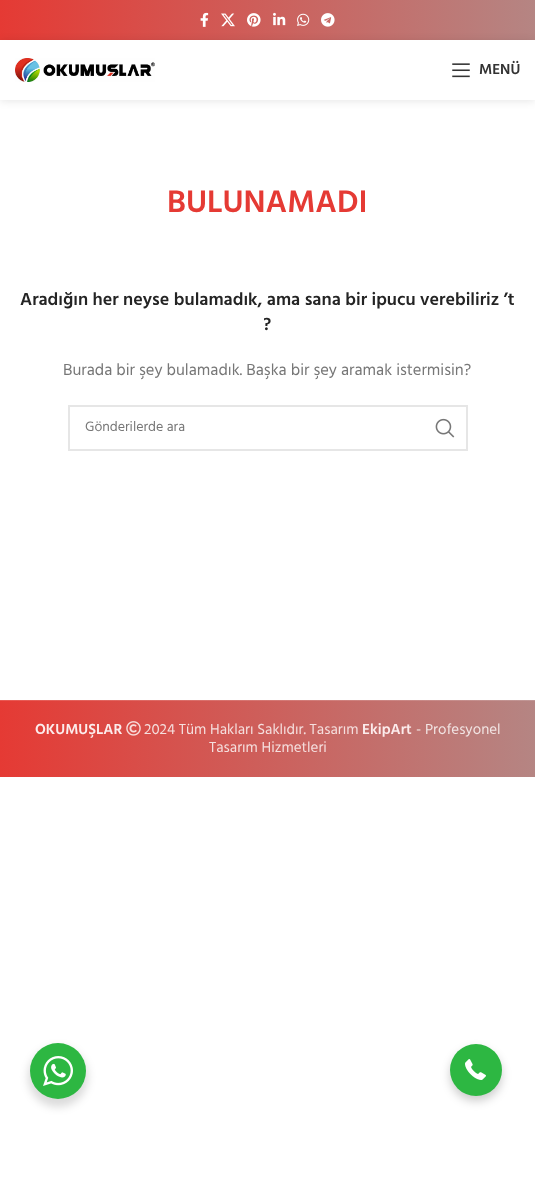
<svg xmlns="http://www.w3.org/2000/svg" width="535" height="1199">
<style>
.a{font:600 15px Hind;fill:#333}
.b{font:600 32px Hind;fill:#e53a34}
.c{font:600 18px Hind;fill:#242424}
.d{font:16.5px Hind;fill:#777}
.e{font:14px Hind;fill:#777}
.f{font:600 15px Hind;fill:#fcecec}
.g{font:15px Hind;fill:#f5dfde}
.h{font:15px Hind;fill:#f2e5e4}
</style>
<defs>
<linearGradient id="g1" gradientUnits="userSpaceOnUse" x1="0" y1="20" x2="535" y2="20"><stop offset="0" stop-color="#e53a34"/><stop offset="1" stop-color="#b58583"/></linearGradient>
<clipPath id="clip1"><path d="M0 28h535v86h-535zm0 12h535v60h-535z" clip-rule="evenodd"/></clipPath>
<linearGradient id="g2" gradientUnits="userSpaceOnUse" x1="0" y1="739" x2="535" y2="739"><stop offset="0" stop-color="#e53a34"/><stop offset="1" stop-color="#b58583"/></linearGradient>
<linearGradient id="g3" gradientUnits="userSpaceOnUse" x1="0" y1="739" x2="535" y2="739"><stop offset="0" stop-color="#e95852"/><stop offset="1" stop-color="#c09796"/></linearGradient>
</defs>
<rect width="100%" height="100%" fill="#fff"/>
<path fill="url(#g1)" d="M0 0h535v40H0z"/>
<image href="1.png" x="200" y="12" width="9" height="15"/>
<image href="2.png" x="221" y="13" width="14" height="14"/>
<image href="3.png" x="247" y="13" width="14" height="14"/>
<image href="4.png" x="273" y="12" width="13" height="14"/>
<image href="5.png" x="297" y="13" width="13" height="13"/>
<image href="6.png" x="321" y="13" width="14" height="14"/>
<g clip-path="url(#clip1)">
<path fill="#0000001a" filter="blur(4px)" d="M0 41h535v60H0z"/>
</g>
<image href="7.png" x="15" y="58" width="140" height="24"/>
<image href="8.png" x="452" y="63" width="18" height="15"/>
<path fill="none" stroke="#e6e6e6" stroke-width="2" d="M69 406h398v44H69z"/>
<image href="9.png" x="435" y="418" width="20" height="20"/>
<path fill="url(#g2)" d="M0 701h535v76H0z"/>
<path fill="url(#g3)" d="M0 700h535v1H0z"/>
<image href="10.png" x="126" y="721" width="15" height="15"/>
<rect fill="#00000033" filter="blur(5px)" x="450" y="1049" width="52" height="52" rx="26"/>
<circle fill="#2db742" cx="476" cy="1070" r="26"/>
<image href="11.png" x="465" y="1059" width="21" height="21"/>
<rect fill="#00000024" filter="blur(4px)" x="28" y="1047" width="60" height="60" rx="30"/>
<circle fill="#2db742" cx="58" cy="1071" r="28"/>
<image href="12.png" x="43" y="1056" width="30" height="30"/>
<text class="a" x="479" y="74">MENÜ</text>
<text class="b" x="167" y="212">BULUNAMADI</text>
<text class="c" x="20" y="305">Aradığın her neyse bulamadık, ama sana bir ipucu verebiliriz ’t</text>
<text class="c" x="263" y="330">?</text>
<text class="d" x="63" y="375">Burada bir şey bulamadık. Başka bir şey aramak istermisin?</text>
<text class="e" x="85" y="431">Gönderilerde ara</text>
<text class="f" x="35" y="734">OKUMUŞLAR</text>
<text class="g" x="144" y="734">2024 Tüm Hakları Saklıdır. Tasarım</text>
<text class="f" x="362" y="734">EkipArt</text>
<text class="h" x="416" y="734">- Profesyonel</text>
<text class="g" x="209" y="752">Tasarım Hizmetleri</text>
</svg>
